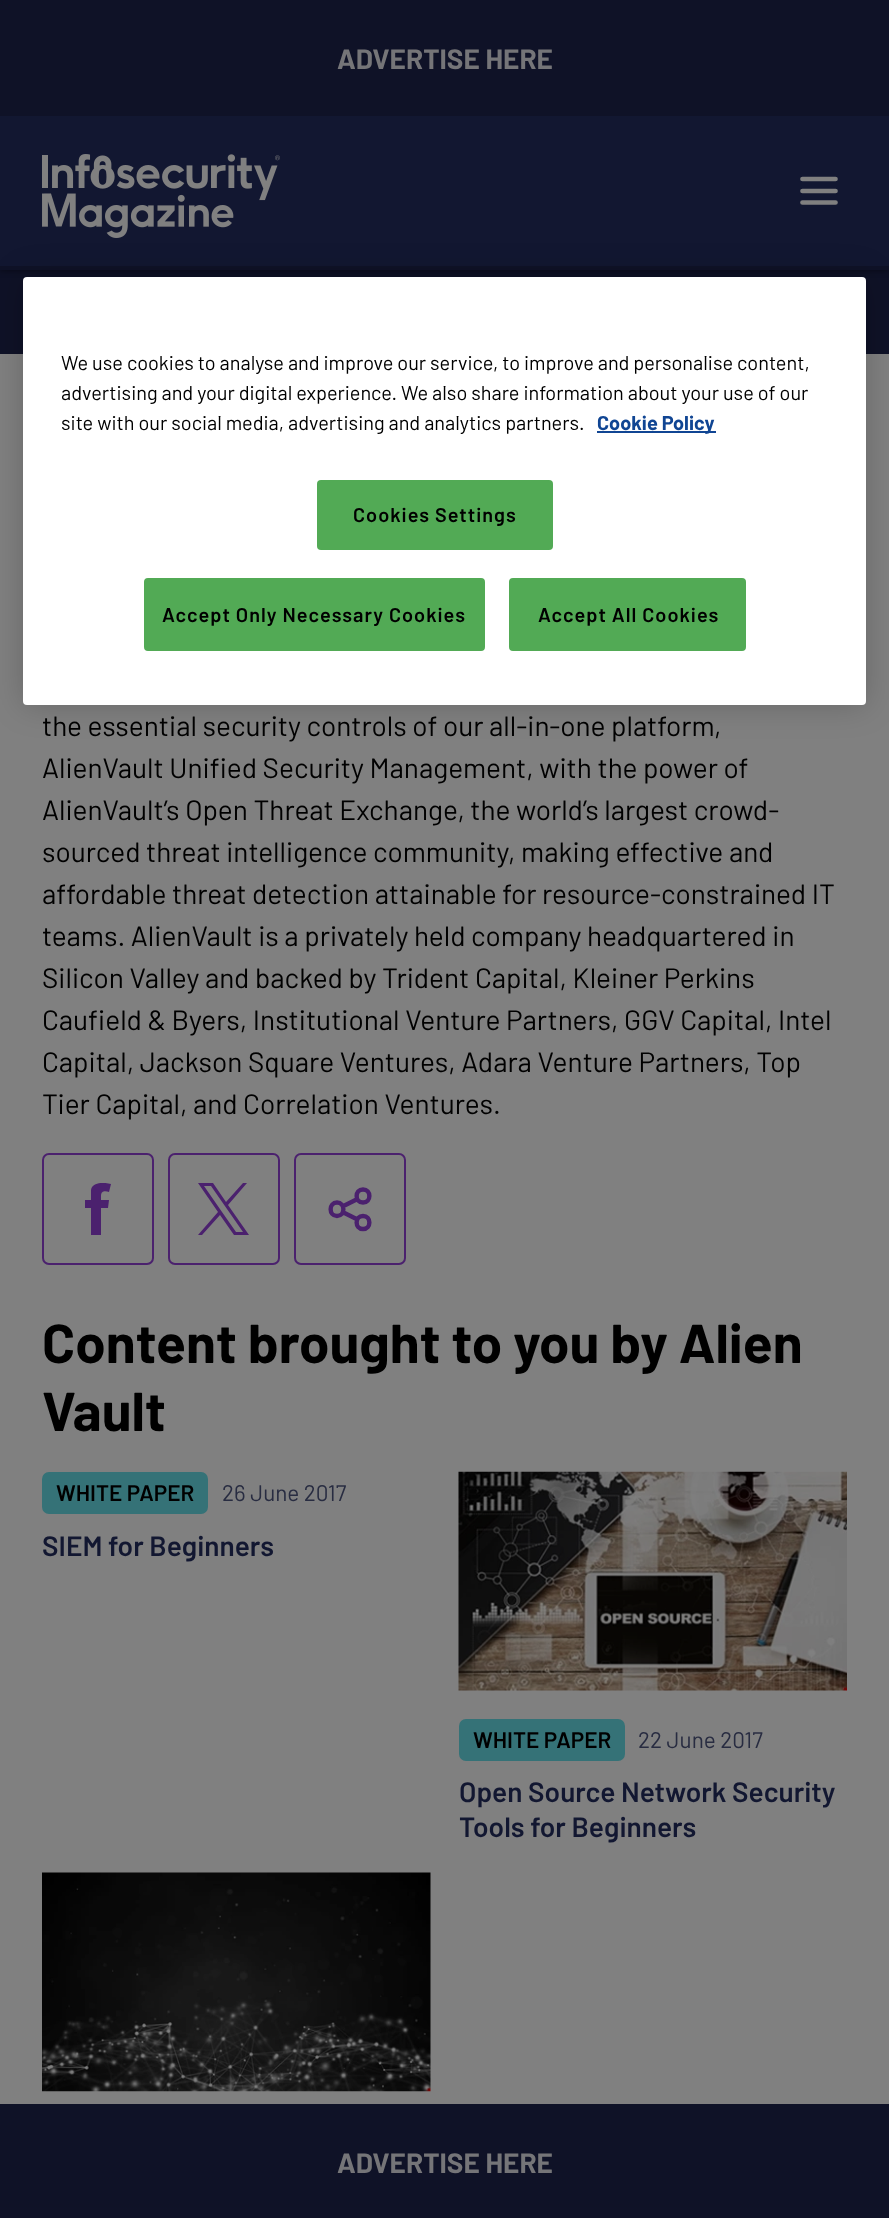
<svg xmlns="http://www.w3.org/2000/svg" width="889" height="2218">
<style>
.a{font:bold 28px Barlow;fill:#757578}
.b{font:19.9px Barlow;fill:#000}
.c{font:bold 19.9px Barlow;fill:#104593}
.d{font:600 19.9px Barlow;letter-spacing:1px;fill:#000}
.e{font:28px Barlow;fill:#000}
.f{font:bold 54.75px Barlow;fill:#000}
.g{font:600 22.5px Barlow;fill:#000}
.h{font:22.5px Barlow;fill:#282c41}
.i{font:600 28px Barlow;fill:#121731}
</style>
<defs>
<clipPath id="clip1"><path d="M72 1183h52v53H72z"/></clipPath>
</defs>
<rect width="100%" height="100%" fill="#808080"/>
<path fill="#0f1227" d="M0 270h889v84H0z"/>
<path fill="#00000080" filter="blur(3.5px)" d="M0 116h889v154H0z"/>
<path fill="#0f1227" d="M0 0h889v116H0z"/>
<path fill="#121731" d="M0 116h889v150H0z"/>
<path fill="#0f1227" d="M0 266h889v4H0z"/>
<image href="1.png" x="42" y="154" width="238" height="84"/>
<path fill="none" stroke="#808080" stroke-width="4.7" stroke-linecap="round" stroke-linejoin="round" d="M802.5 202.5h33m-33-11.5h33m-33-12h33"/>
<rect fill="#00000033" filter="blur(16px)" x="23" y="277" width="843" height="428" rx="4"/>
<rect fill="#fff" x="23" y="277" width="843" height="428" rx="4"/>
<path fill="#104593" d="M597 431h119v2H597z"/>
<rect fill="#52aa55" x="317" y="480" width="236" height="70" rx="4"/>
<rect fill="#52aa55" stroke="#52aa55" stroke-width="2" x="145" y="579" width="339" height="71" rx="3"/>
<rect fill="#52aa55" stroke="#52aa55" stroke-width="2" x="510" y="579" width="235" height="71" rx="3"/>
<rect fill="none" stroke="#4b216e" stroke-width="2" x="43" y="1154" width="110" height="110" rx="6"/>
<g clip-path="url(#clip1)">
<path fill="#4b216e" d="M101 1196v4h8l-1 8h-7v27h-10v-27h-6v-8h6v-10c1-8 13-8 20-6l-2 8c-3-1-8-2-8 4z"/>
</g>
<rect fill="none" stroke="#4b216e" stroke-width="2" x="169" y="1154" width="110" height="110" rx="6"/>
<path fill="#4b216e" d="M228 1205l19-22h-4l-17 19l-13-19h-15l20 29l-20 23h4l18-20l14 20h15zm-6 7l-18-26h7l32 46h-7z"/>
<rect fill="none" stroke="#4b216e" stroke-width="2" x="295" y="1154" width="110" height="110" rx="6"/>
<path fill="none" stroke="#4b216e" stroke-width="4.4" stroke-linecap="round" stroke-linejoin="round" d="M343.5 1212.5l13 6.5m0-19.5l-13 6.5m19.5 23c-8.5 0-8.5-13 0-13c8.5 0 8.5 13 0 13zm-26-13c-8.5 0-8.5-13.5 0-13.5c8.5 0 8.5 13.5 0 13.5zm26-13.5c-8.5 0-8.5-13 0-13c8.5 0 8.5 13 0 13z"/>
<rect fill="#357277" x="42" y="1472" width="166" height="42" rx="7"/>
<image href="2.png" x="458" y="1471" width="389" height="220"/>
<rect fill="#357277" x="459" y="1719" width="166" height="42" rx="7"/>
<image href="3.png" x="42" y="1872" width="389" height="220"/>
<path fill="#0f1227" d="M0 2104h889v114H0z"/>
<text class="a" x="337" y="69">ADVERTISE HERE</text>
<text class="b" x="61" y="370">We use cookies to analyse and improve our service, to improve and personalise content,</text>
<text class="b" x="61" y="400">advertising and your digital experience. We also share information about your use of our</text>
<text class="b" x="61" y="430">site with our social media, advertising and analytics partners.</text>
<text class="c" x="597" y="430">Cookie Policy</text>
<text class="d" x="353" y="522">Cookies Settings</text>
<text class="d" x="162" y="622">Accept Only Necessary Cookies</text>
<text class="d" x="538" y="622">Accept All Cookies</text>
<text class="e" x="42" y="736">the essential security controls of our all-in-one platform,</text>
<text class="e" x="42" y="778">AlienVault Unified Security Management, with the power of</text>
<text class="e" x="42" y="820">AlienVault’s Open Threat Exchange, the world’s largest crowd-</text>
<text class="e" x="42" y="862">sourced threat intelligence community, making effective and</text>
<text class="e" x="42" y="904">affordable threat detection attainable for resource-constrained IT</text>
<text class="e" x="42" y="946">teams. AlienVault is a privately held company headquartered in</text>
<text class="e" x="42" y="988">Silicon Valley and backed by Trident Capital, Kleiner Perkins</text>
<text class="e" x="42" y="1030">Caufield &amp; Byers, Institutional Venture Partners, GGV Capital, Intel</text>
<text class="e" x="42" y="1072">Capital, Jackson Square Ventures, Adara Venture Partners, Top</text>
<text class="e" x="42" y="1114">Tier Capital, and Correlation Ventures.</text>
<text class="f" x="42" y="1363">Content brought to you by Alien</text>
<text class="f" x="42" y="1431">Vault</text>
<text class="g" x="56" y="1501">WHITE PAPER</text>
<text class="h" x="222" y="1501">26 June 2017</text>
<text class="i" x="42" y="1556">SIEM for Beginners</text>
<text class="g" x="473" y="1748">WHITE PAPER</text>
<text class="h" x="638" y="1748">22 June 2017</text>
<text class="i" x="459" y="1802">Open Source Network Security</text>
<text class="i" x="459" y="1837">Tools for Beginners</text>
<text class="a" x="337" y="2173">ADVERTISE HERE</text>
</svg>
